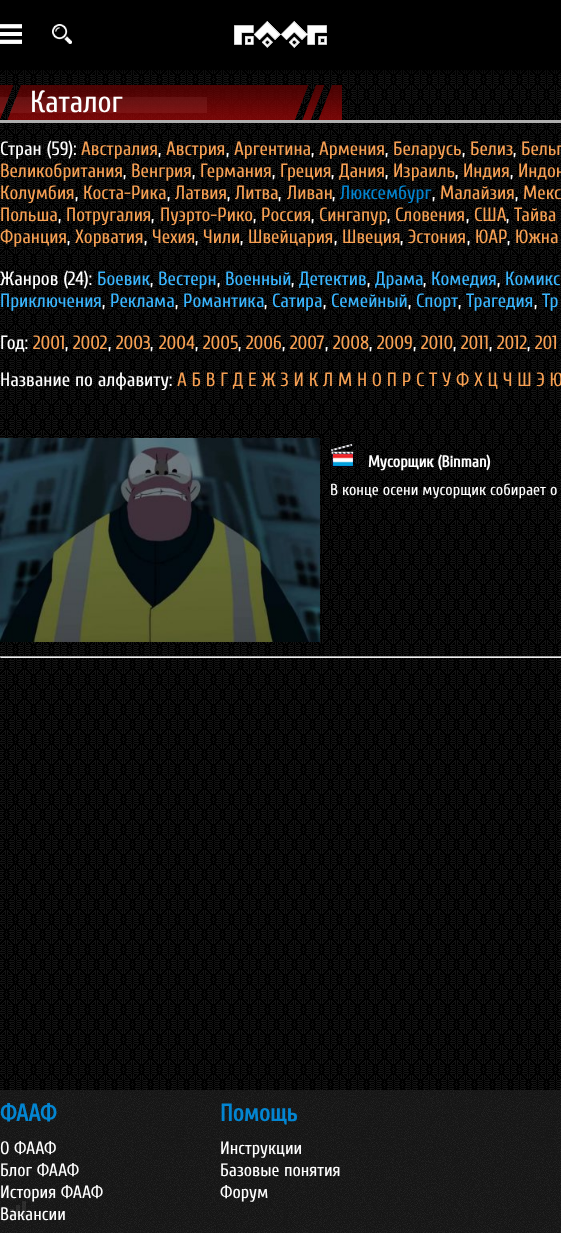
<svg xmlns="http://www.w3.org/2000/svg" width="561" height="1233">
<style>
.a{font:30.5px Cuprum;fill:#fff}
.b{font:19.2px Cuprum;fill:#fff}
.c{font:19.2px Cuprum;fill:#f7a053}
.d{font:19.2px Cuprum;fill:#0385d1}
.e{font:19.2px Cuprum;fill:#39b6ff}
.f{font:bold 16px Cuprum;fill:#fff}
.g{font:16px Cuprum;fill:#fff}
.h{font:bold 24px Cuprum;fill:#0385d1}
.i{font:18px Cuprum;fill:#fff}
</style>
<rect width="100%" height="100%" fill="#000"/>
<image href="1.png" x="0" y="24" width="22" height="20"/>
<image href="2.png" x="52" y="24" width="20" height="20"/>
<image href="3.png" x="234" y="21" width="93" height="27"/>
<image href="5.png" x="0" y="70" width="561" height="1020"/>
<image href="4.png" x="0" y="70" width="561" height="4"/>
<path fill="#aeaeae" d="M0 120h561v3H0z"/>
<image href="6.png" x="0" y="85" width="342" height="35"/>
<image href="7.png" x="0" y="438" width="320" height="204"/>
<image href="8.png" x="330" y="443" width="24" height="24"/>
<path fill="#9f9f9f" d="M0 656h561v1H0z"/>
<path fill="#eee" d="M0 657h561v1H0z"/>
<path fill="#9f9f9f" d="M0 656h1v2H0z"/>
<image href="9.png" x="0" y="1090" width="561" height="143"/>
<text class="a" x="30" y="112">Каталог</text>
<text class="b" x="0" y="155">Стран (59):</text>
<text class="c" x="81" y="155">Австралия</text>
<text class="b" x="158" y="155">,</text>
<text class="c" x="166" y="155">Австрия</text>
<text class="b" x="226" y="155">,</text>
<text class="c" x="234" y="155">Аргентина</text>
<text class="b" x="311" y="155">,</text>
<text class="c" x="319" y="155">Армения</text>
<text class="b" x="385" y="155">,</text>
<text class="c" x="393" y="155">Беларусь</text>
<text class="b" x="462" y="155">,</text>
<text class="c" x="470" y="155">Белиз</text>
<text class="b" x="513" y="155">,</text>
<text class="c" x="521" y="155">Бельг</text>
<text class="c" x="0" y="177">Великобритания</text>
<text class="b" x="123" y="177">,</text>
<text class="c" x="131" y="177">Венгрия</text>
<text class="b" x="192" y="177">,</text>
<text class="c" x="200" y="177">Германия</text>
<text class="b" x="272" y="177">,</text>
<text class="c" x="280" y="177">Греция</text>
<text class="b" x="331" y="177">,</text>
<text class="c" x="339" y="177">Дания</text>
<text class="b" x="385" y="177">,</text>
<text class="c" x="393" y="177">Израиль</text>
<text class="b" x="455" y="177">,</text>
<text class="c" x="463" y="177">Индия</text>
<text class="b" x="510" y="177">,</text>
<text class="c" x="518" y="177">Индон</text>
<text class="c" x="0" y="199">Колумбия</text>
<text class="b" x="75" y="199">,</text>
<text class="c" x="83" y="199">Коста-Рика</text>
<text class="b" x="167" y="199">,</text>
<text class="c" x="175" y="199">Латвия</text>
<text class="b" x="227" y="199">,</text>
<text class="c" x="235" y="199">Литва</text>
<text class="b" x="278" y="199">,</text>
<text class="c" x="287" y="199">Ливан</text>
<text class="b" x="332" y="199">,</text>
<text class="d" x="340" y="199">Люксембург</text>
<text class="b" x="432" y="199">,</text>
<text class="c" x="440" y="199">Малайзия</text>
<text class="b" x="515" y="199">,</text>
<text class="c" x="523" y="199">Мекс</text>
<text class="c" x="0" y="221">Польша</text>
<text class="b" x="58" y="221">,</text>
<text class="c" x="66" y="221">Потругалия</text>
<text class="b" x="151" y="221">,</text>
<text class="c" x="160" y="221">Пуэрто-Рико</text>
<text class="b" x="253" y="221">,</text>
<text class="c" x="261" y="221">Россия</text>
<text class="b" x="311" y="221">,</text>
<text class="c" x="319" y="221">Сингапур</text>
<text class="b" x="387" y="221">,</text>
<text class="c" x="395" y="221">Словения</text>
<text class="b" x="466" y="221">,</text>
<text class="c" x="474" y="221">США</text>
<text class="b" x="506" y="221">,</text>
<text class="c" x="514" y="221">Тайва</text>
<text class="c" x="0" y="243">Франция</text>
<text class="b" x="67" y="243">,</text>
<text class="c" x="75" y="243">Хорватия</text>
<text class="b" x="144" y="243">,</text>
<text class="c" x="152" y="243">Чехия</text>
<text class="b" x="195" y="243">,</text>
<text class="c" x="203" y="243">Чили</text>
<text class="b" x="240" y="243">,</text>
<text class="c" x="248" y="243">Швейцария</text>
<text class="b" x="334" y="243">,</text>
<text class="c" x="342" y="243">Швеция</text>
<text class="b" x="400" y="243">,</text>
<text class="c" x="408" y="243">Эстония</text>
<text class="b" x="467" y="243">,</text>
<text class="c" x="475" y="243">ЮАР</text>
<text class="b" x="507" y="243">,</text>
<text class="c" x="515" y="243">Южна</text>
<text class="b" x="0" y="285">Жанров (24):</text>
<text class="e" x="97" y="285">Боевик</text>
<text class="b" x="150" y="285">,</text>
<text class="e" x="158" y="285">Вестерн</text>
<text class="b" x="217" y="285">,</text>
<text class="e" x="225" y="285">Военный</text>
<text class="b" x="291" y="285">,</text>
<text class="e" x="299" y="285">Детектив</text>
<text class="b" x="367" y="285">,</text>
<text class="e" x="375" y="285">Драма</text>
<text class="b" x="423" y="285">,</text>
<text class="e" x="431" y="285">Комедия</text>
<text class="b" x="497" y="285">,</text>
<text class="e" x="505" y="285">Комикс</text>
<text class="e" x="0" y="307">Приключения</text>
<text class="b" x="102" y="307">,</text>
<text class="e" x="110" y="307">Реклама</text>
<text class="b" x="175" y="307">,</text>
<text class="e" x="183" y="307">Романтика</text>
<text class="b" x="264" y="307">,</text>
<text class="e" x="272" y="307">Сатира</text>
<text class="b" x="323" y="307">,</text>
<text class="e" x="331" y="307">Семейный</text>
<text class="b" x="408" y="307">,</text>
<text class="e" x="416" y="307">Спорт</text>
<text class="b" x="458" y="307">,</text>
<text class="e" x="466" y="307">Трагедия</text>
<text class="b" x="534" y="307">,</text>
<text class="e" x="542" y="307">Тр</text>
<text class="b" x="0" y="349">Год:</text>
<text class="c" x="33" y="349">2001</text>
<text class="b" x="65" y="349">,</text>
<text class="c" x="73" y="349">2002</text>
<text class="b" x="108" y="349">,</text>
<text class="c" x="116" y="349">2003</text>
<text class="b" x="150" y="349">,</text>
<text class="c" x="159" y="349">2004</text>
<text class="b" x="195" y="349">,</text>
<text class="c" x="203" y="349">2005</text>
<text class="b" x="238" y="349">,</text>
<text class="c" x="246" y="349">2006</text>
<text class="b" x="282" y="349">,</text>
<text class="c" x="290" y="349">2007</text>
<text class="b" x="325" y="349">,</text>
<text class="c" x="333" y="349">2008</text>
<text class="b" x="369" y="349">,</text>
<text class="c" x="377" y="349">2009</text>
<text class="b" x="413" y="349">,</text>
<text class="c" x="421" y="349">2010</text>
<text class="b" x="453" y="349">,</text>
<text class="c" x="461" y="349">2011</text>
<text class="b" x="489" y="349">,</text>
<text class="c" x="497" y="349">2012</text>
<text class="b" x="527" y="349">,</text>
<text class="c" x="535" y="349">201</text>
<text class="b" x="0" y="386">Название по алфавиту:</text>
<text class="c" x="177" y="386">А Б В Г Д Е Ж З И К Л М Н О П Р С Т У Ф Х Ц Ч Ш Э Ю</text>
<text class="f" x="368" y="467">Мусорщик (Binman)</text>
<text class="g" x="330" y="495">В конце осени мусорщик собирает о</text>
<text class="h" x="0" y="1121">ФААФ</text>
<text class="i" x="0" y="1154">О ФААФ</text>
<text class="i" x="0" y="1176">Блог ФААФ</text>
<text class="i" x="0" y="1198">История ФААФ</text>
<text class="i" x="0" y="1220">Вакансии</text>
<text class="h" x="220" y="1121">Помощь</text>
<text class="i" x="220" y="1154">Инструкции</text>
<text class="i" x="220" y="1176">Базовые понятия</text>
<text class="i" x="220" y="1198">Форум</text>
<image href="10.png" x="10" y="1201" width="16" height="16"/>
</svg>
